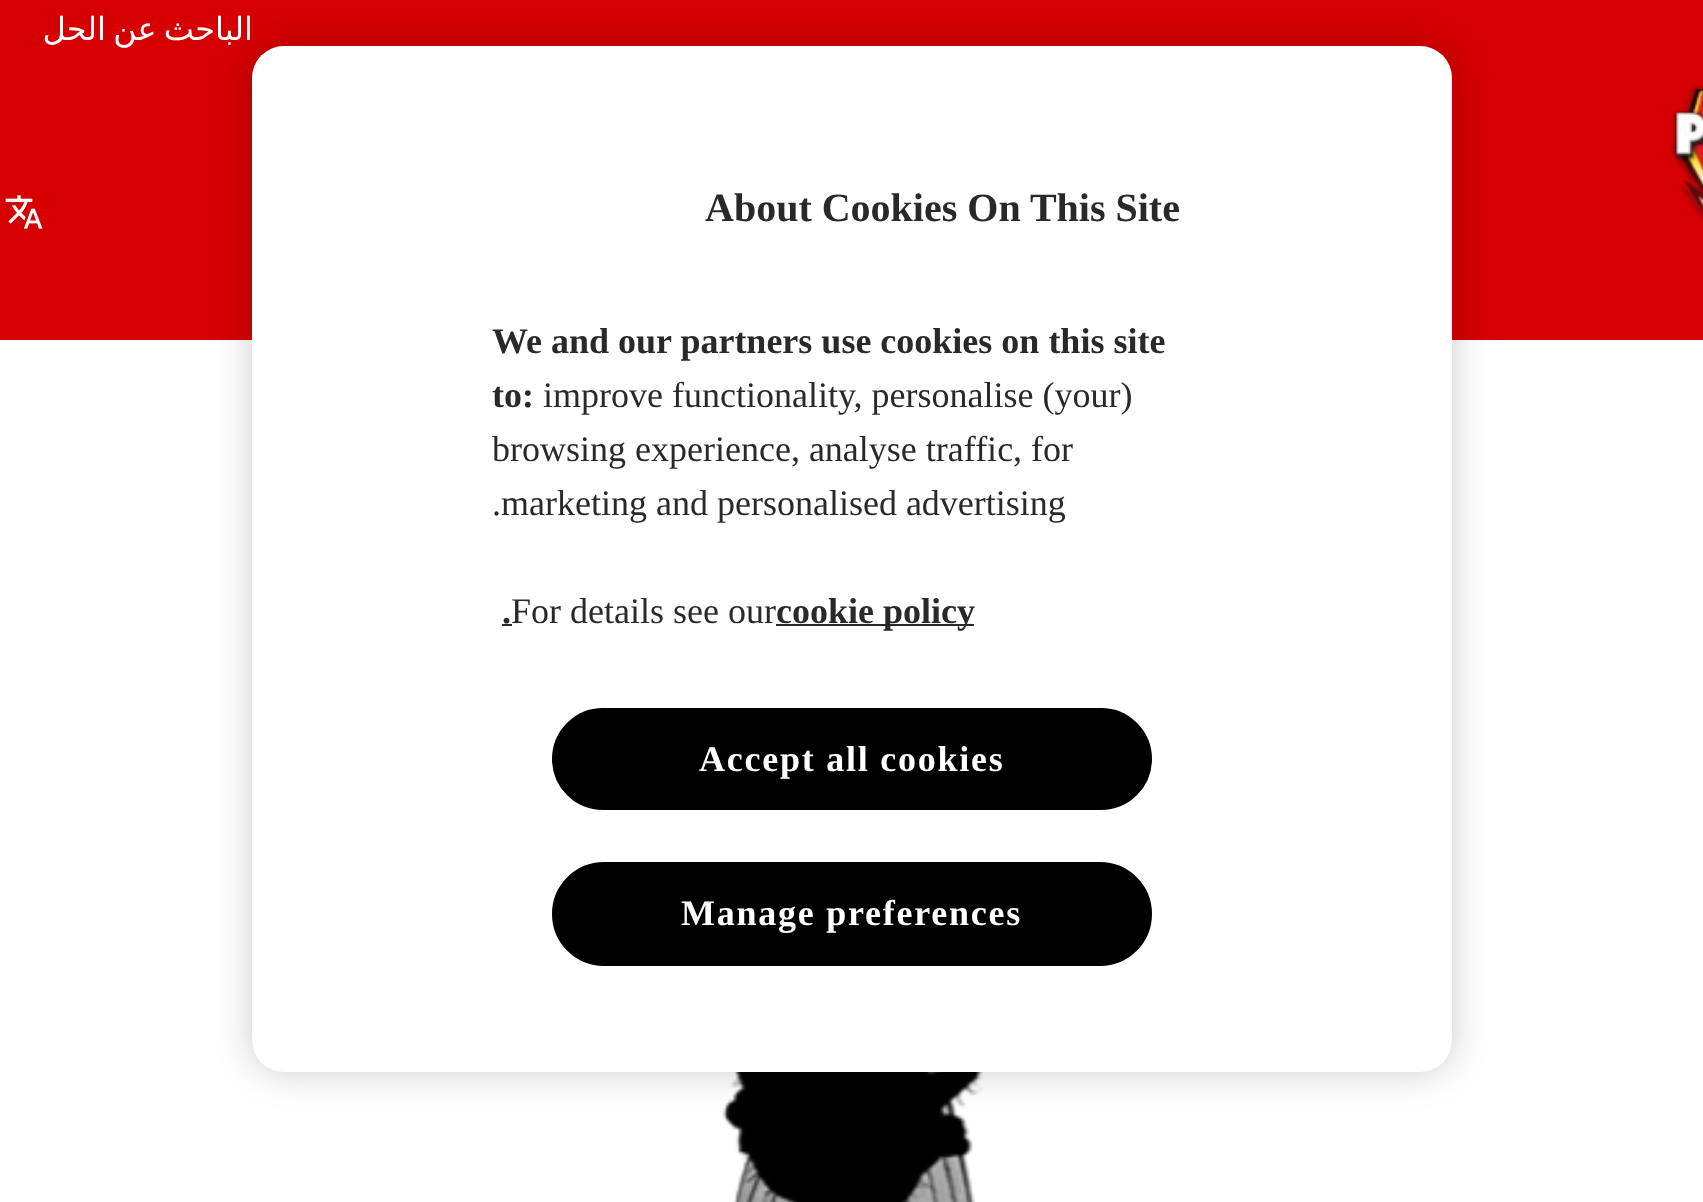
<svg xmlns="http://www.w3.org/2000/svg" width="1703" height="1202">
<style>
.a{font:32px DejaVu Sans;direction:rtl;fill:#fff}
.b{font:bold 40px Liberation Serif;fill:#292929}
.c{font:bold 36px Liberation Serif;fill:#292929}
.d{font:36px Liberation Serif;fill:#292929}
.e{font:bold 36px Liberation Serif;letter-spacing:1.75px;fill:#fff}
</style>
<rect width="100%" height="100%" fill="#fff"/>
<path fill="#d60002" d="M0 0h1703v340H0z"/>
<image href="1.png" x="5" y="195" width="38" height="34"/>
<image href="2.png" x="1670" y="85" width="33" height="137"/>
<image href="3.png" x="722" y="1072" width="261" height="130"/>
<rect fill="#00000033" filter="blur(18px)" x="252" y="46" width="1200" height="1026" rx="32"/>
<rect fill="#fff" x="252" y="46" width="1200" height="1026" rx="32"/>
<path fill="#292929" d="M502 624h10v2H502z"/>
<path fill="#292929" d="M776 624h198v2H776z"/>
<rect fill="#000" stroke="#000" stroke-width="2" x="553" y="709" width="598" height="100" rx="50"/>
<rect fill="#000" stroke="#000" stroke-width="2" x="553" y="863" width="598" height="102" rx="51"/>
<text class="a" x="253" y="40" word-spacing="-3">الباحث عن الحل</text>
<text class="b" x="705" y="221">About Cookies On This Site</text>
<text class="c" x="492" y="353">We and our partners use cookies on this site</text>
<text class="c" x="492" y="407">to:</text>
<text class="d" x="543" y="407">improve functionality, personalise (your)</text>
<text class="d" x="492" y="461">browsing experience, analyse traffic, for</text>
<text class="d" x="492" y="515">.marketing and personalised advertising</text>
<text class="c" x="502" y="623">.</text>
<text class="d" x="511" y="623">For details see our</text>
<text class="c" x="776" y="623">cookie policy</text>
<text class="e" x="699" y="771">Accept all cookies</text>
<text class="e" x="681" y="925">Manage preferences</text>
</svg>
